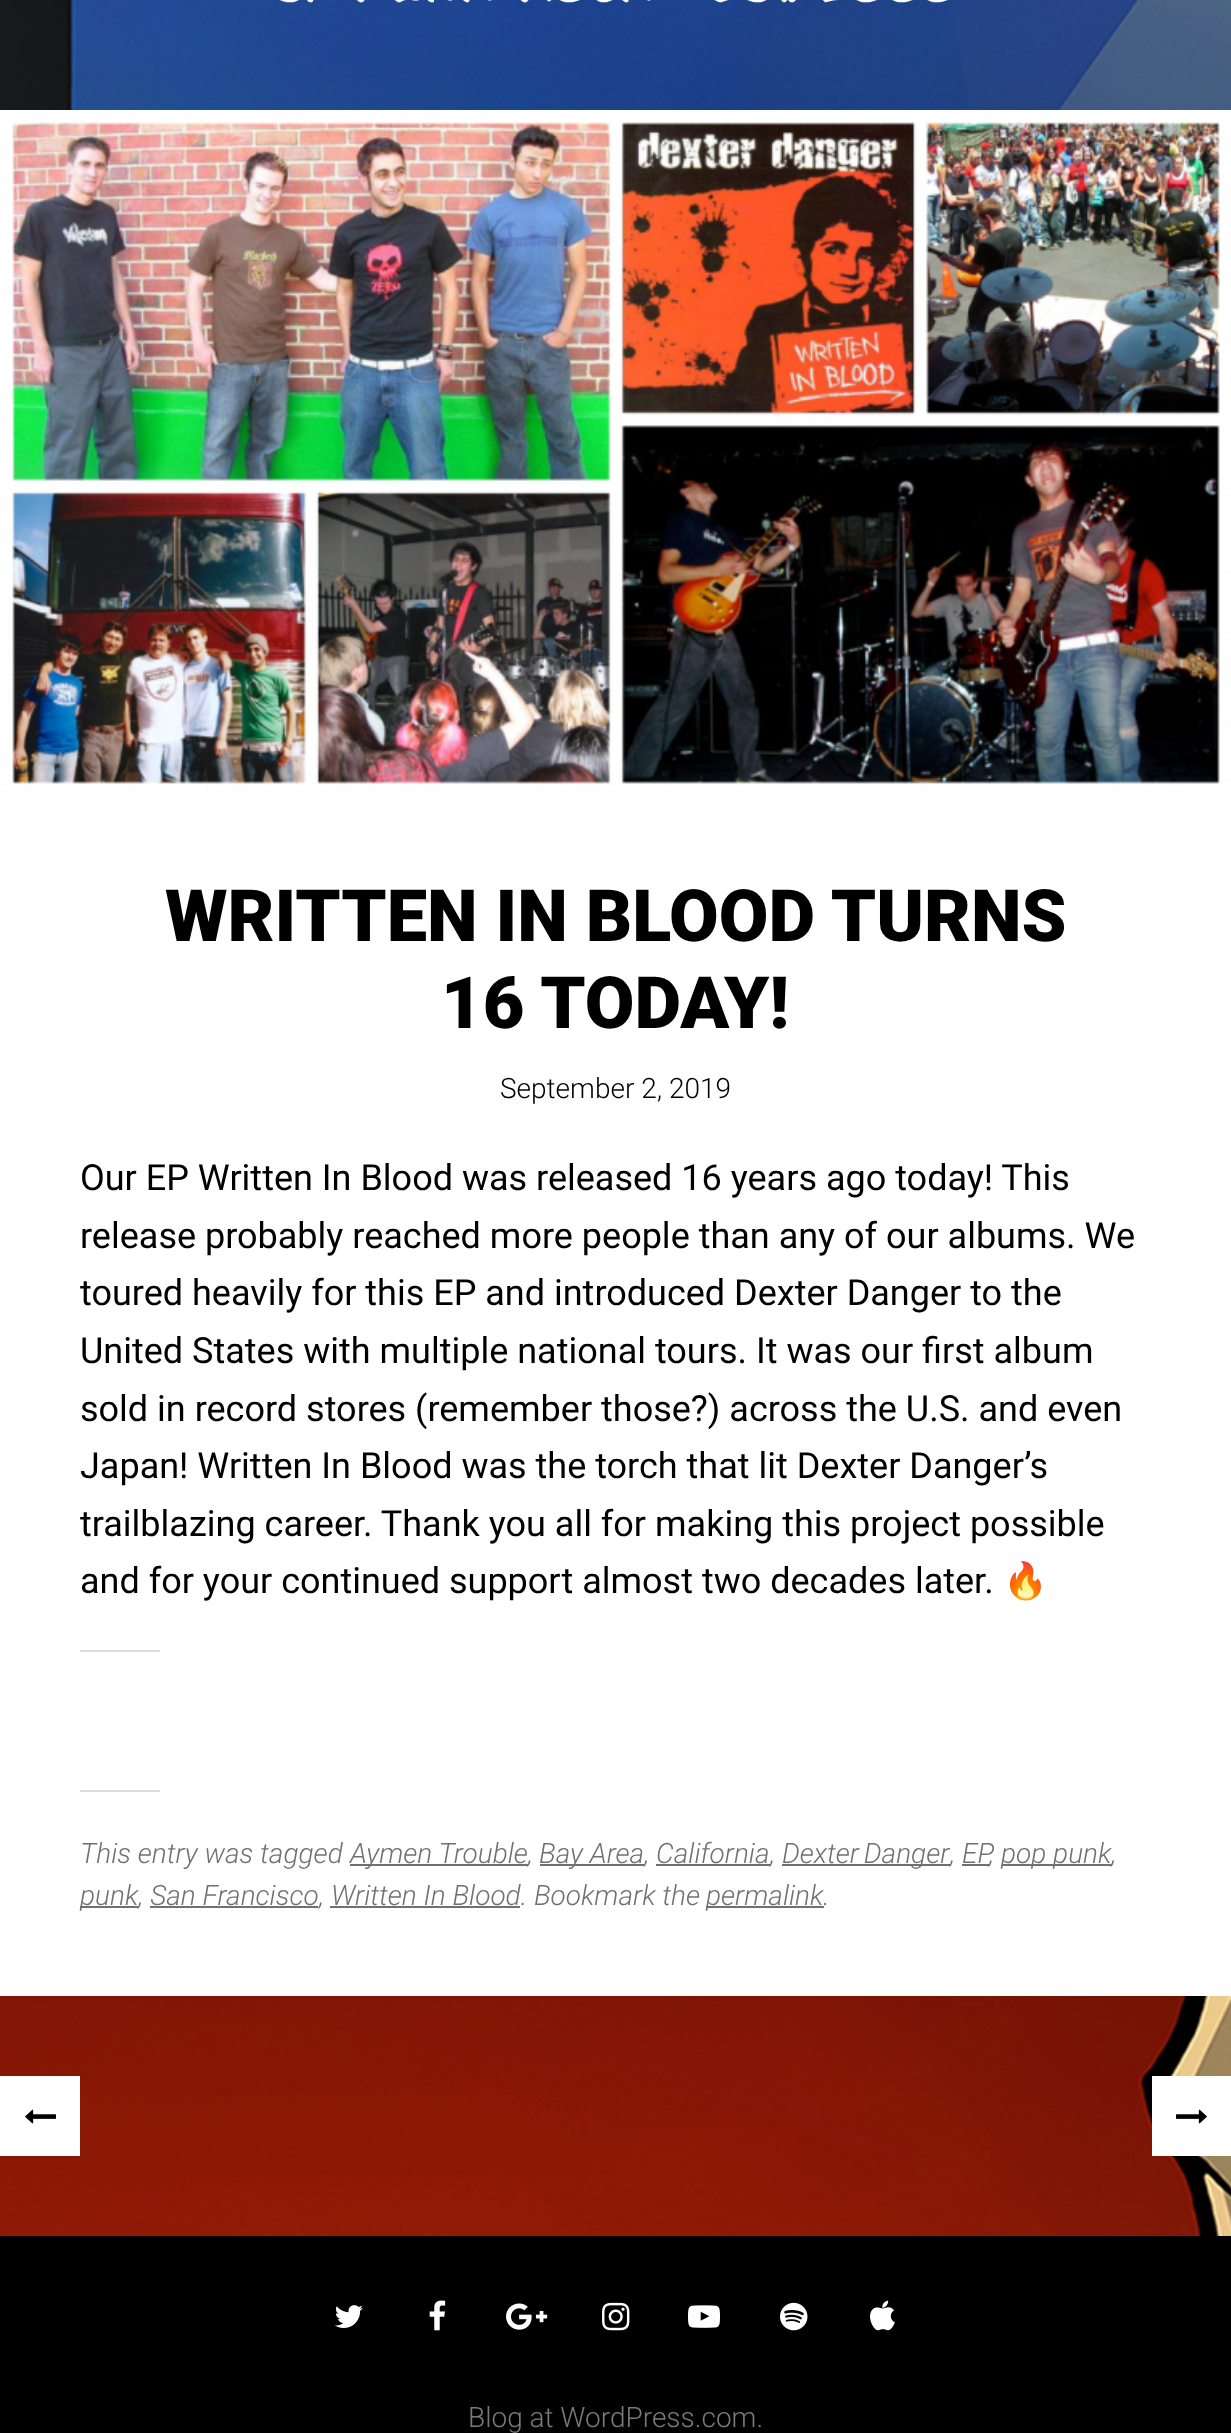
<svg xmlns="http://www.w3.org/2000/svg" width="1231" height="2433">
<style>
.a{font:900 72px Roboto;fill:#000}
.b{font:300 28px Roboto;fill:#000}
.c{font:36px Roboto;fill:#000}
.d{font:36px Noto Color Emoji;fill:#000}
.e{font:italic 300 28px Roboto;fill:#707070}
.f{font:300 28px Roboto;fill:#7a7a7a}
</style>
<rect width="100%" height="100%" fill="#fff"/>
<image href="1.png" x="0" y="0" width="1231" height="2236"/>
<image href="2.png" x="279" y="0" width="669" height="3"/>
<path fill="#fff" d="M0 796h1231v1200H0z"/>
<image href="3.png" x="0" y="110" width="1231" height="686"/>
<path fill="#ddd" d="M80 1650h80v2H80z"/>
<path fill="#ddd" d="M80 1790h80v2H80z"/>
<path fill="#707070" d="M350 1864h178v2H350z"/>
<path fill="#707070" d="M540 1864h104v2H540z"/>
<path fill="#707070" d="M782 1864h168v2H782z"/>
<path fill="#707070" d="M1002 1864h110v2H1002z"/>
<path fill="#707070" d="M656 1864h114v2H656z"/>
<path fill="#707070" d="M962 1864h28v2H962z"/>
<path fill="#707070" d="M80 1906h58v2H80z"/>
<path fill="#707070" d="M706 1906h118v2H706z"/>
<path fill="#707070" d="M150 1906h168v2H150z"/>
<path fill="#707070" d="M330 1906h190v2H330z"/>
<path fill="#fff" d="M0 2076h80v80H0z"/>
<image href="4.png" x="25" y="2109" width="31" height="15"/>
<path fill="#fff" d="M1152 2076h79v80H1152z"/>
<image href="5.png" x="1176" y="2109" width="31" height="15"/>
<path fill="#000" d="M0 2236h1231v197H0z"/>
<image href="6.png" x="335" y="2305" width="28" height="23"/>
<image href="7.png" x="429" y="2300" width="17" height="31"/>
<image href="8.png" x="506" y="2303" width="42" height="27"/>
<image href="9.png" x="602" y="2302" width="28" height="29"/>
<image href="10.png" x="688" y="2305" width="32" height="23"/>
<image href="11.png" x="780" y="2302" width="28" height="29"/>
<image href="12.png" x="870" y="2300" width="25" height="31"/>
<text class="a" x="165" y="941">WRITTEN IN BLOOD TURNS</text>
<text class="a" x="441" y="1028">16 TODAY!</text>
<text class="b" x="500" y="1098">September 2, 2019</text>
<text class="c" x="80" y="1190">Our EP Written In Blood was released 16 years ago today! This</text>
<text class="c" x="80" y="1248">release probably reached more people than any of our albums. We</text>
<text class="c" x="80" y="1305">toured heavily for this EP and introduced Dexter Danger to the</text>
<text class="c" x="80" y="1363">United States with multiple national tours. It was our first album</text>
<text class="c" x="80" y="1421">sold in record stores (remember those?) across the U.S. and even</text>
<text class="c" x="80" y="1478">Japan! Written In Blood was the torch that lit Dexter Danger’s</text>
<text class="c" x="80" y="1536">trailblazing career. Thank you all for making this project possible</text>
<text class="c" x="80" y="1593">and for your continued support almost two decades later.</text>
<text class="d" x="1003" y="1593">🔥</text>
<text class="e" x="80" y="1863">This entry was tagged</text>
<text class="e" x="350" y="1863">Aymen Trouble,</text>
<text class="e" x="539" y="1863">Bay Area, California</text>
<text class="e" x="770" y="1863">,</text>
<text class="e" x="782" y="1863" word-spacing="-2">Dexter Danger</text>
<text class="e" x="950" y="1863">, EP</text>
<text class="e" x="1001" y="1863">pop punk,</text>
<text class="e" x="989" y="1863">,</text>
<text class="e" x="80" y="1905">punk, San Francisco</text>
<text class="e" x="319" y="1905">, Written In Blood. Bookmark the</text>
<text class="e" x="706" y="1905">permalink.</text>
<text class="f" x="468" y="2427">Blog at WordPress.com.</text>
</svg>
